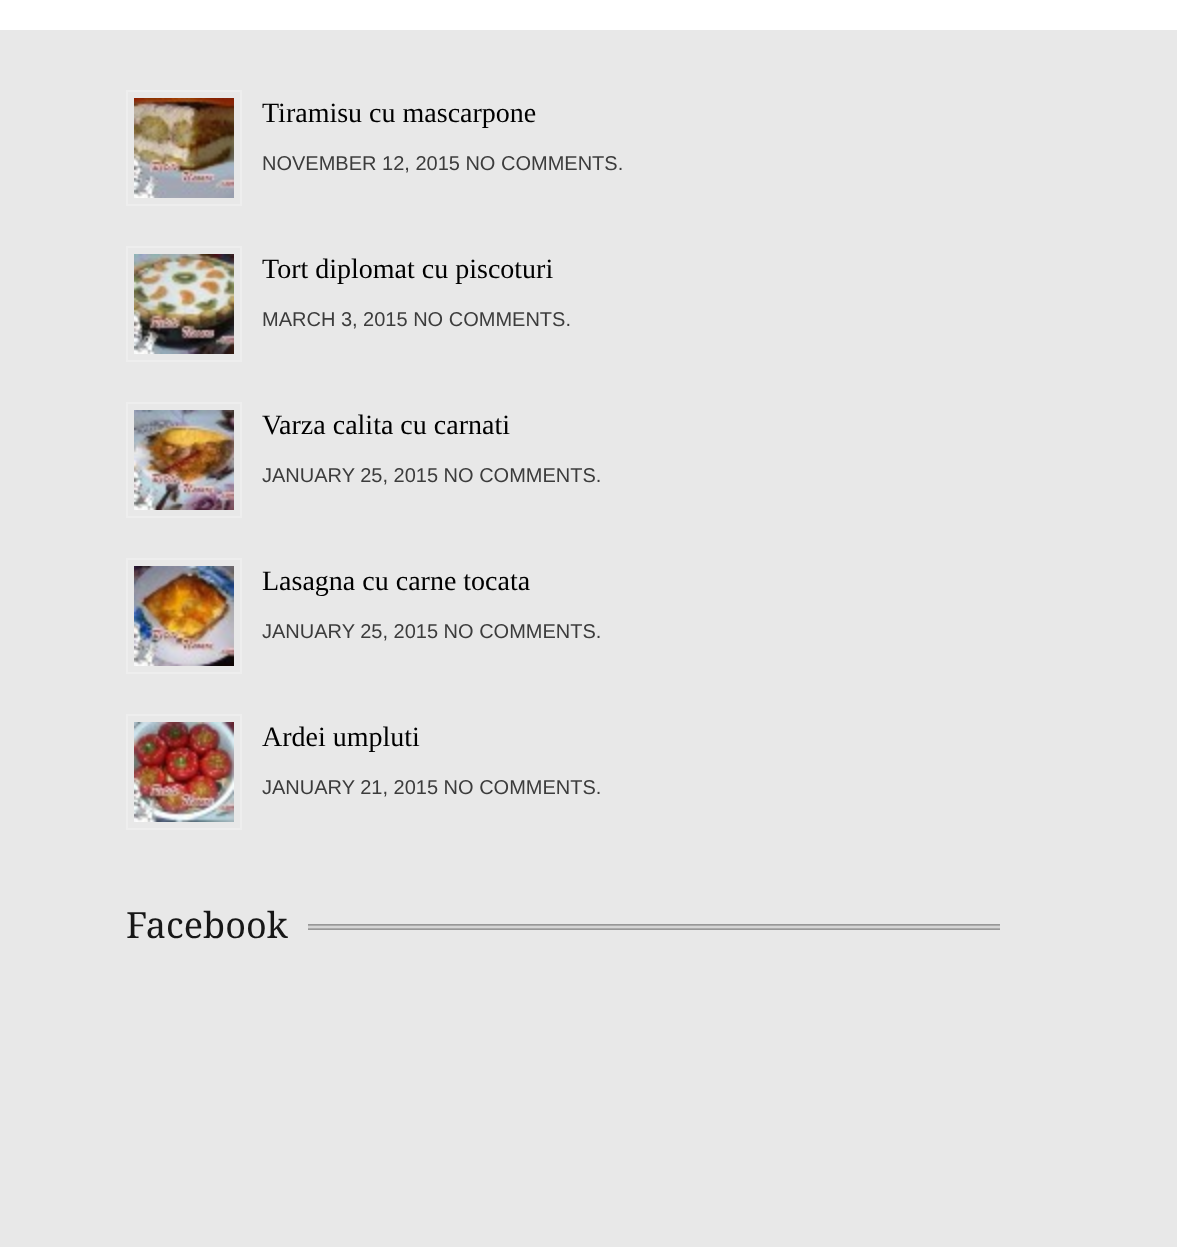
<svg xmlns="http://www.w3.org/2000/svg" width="1177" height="1247">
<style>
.a{font:28px Liberation Serif;fill:#000}
.b{font:20px Liberation Sans;fill:#3c3c3c}
.c{font:36px Droid Serif;fill:#171717}
</style>
<rect width="100%" height="100%" fill="#e8e8e8"/>
<path fill="#fff" d="M0 0h1177v30H0z"/>
<path fill="none" stroke="#eee" stroke-width="2" d="M127 91h114v114H127z"/>
<image href="1.png" x="134" y="98" width="100" height="100"/>
<path fill="none" stroke="#eee" stroke-width="2" d="M127 247h114v114H127z"/>
<image href="2.png" x="134" y="254" width="100" height="100"/>
<path fill="none" stroke="#eee" stroke-width="2" d="M127 403h114v114H127z"/>
<image href="3.png" x="134" y="410" width="100" height="100"/>
<path fill="none" stroke="#eee" stroke-width="2" d="M127 559h114v114H127z"/>
<image href="4.png" x="134" y="566" width="100" height="100"/>
<path fill="none" stroke="#eee" stroke-width="2" d="M127 715h114v114H127z"/>
<image href="5.png" x="134" y="722" width="100" height="100"/>
<image href="6.png" x="308" y="924" width="692" height="6"/>
<text class="a" x="262" y="122">Tiramisu cu mascarpone</text>
<text class="b" x="262" y="170">NOVEMBER 12, 2015 NO COMMENTS.</text>
<text class="a" x="262" y="278">Tort diplomat cu piscoturi</text>
<text class="b" x="262" y="326">MARCH 3, 2015 NO COMMENTS.</text>
<text class="a" x="262" y="434">Varza calita cu carnati</text>
<text class="b" x="262" y="482">JANUARY 25, 2015 NO COMMENTS.</text>
<text class="a" x="262" y="590">Lasagna cu carne tocata</text>
<text class="b" x="262" y="638">JANUARY 25, 2015 NO COMMENTS.</text>
<text class="a" x="262" y="746">Ardei umpluti</text>
<text class="b" x="262" y="794">JANUARY 21, 2015 NO COMMENTS.</text>
<text class="c" x="126" y="938">Facebook</text>
</svg>
